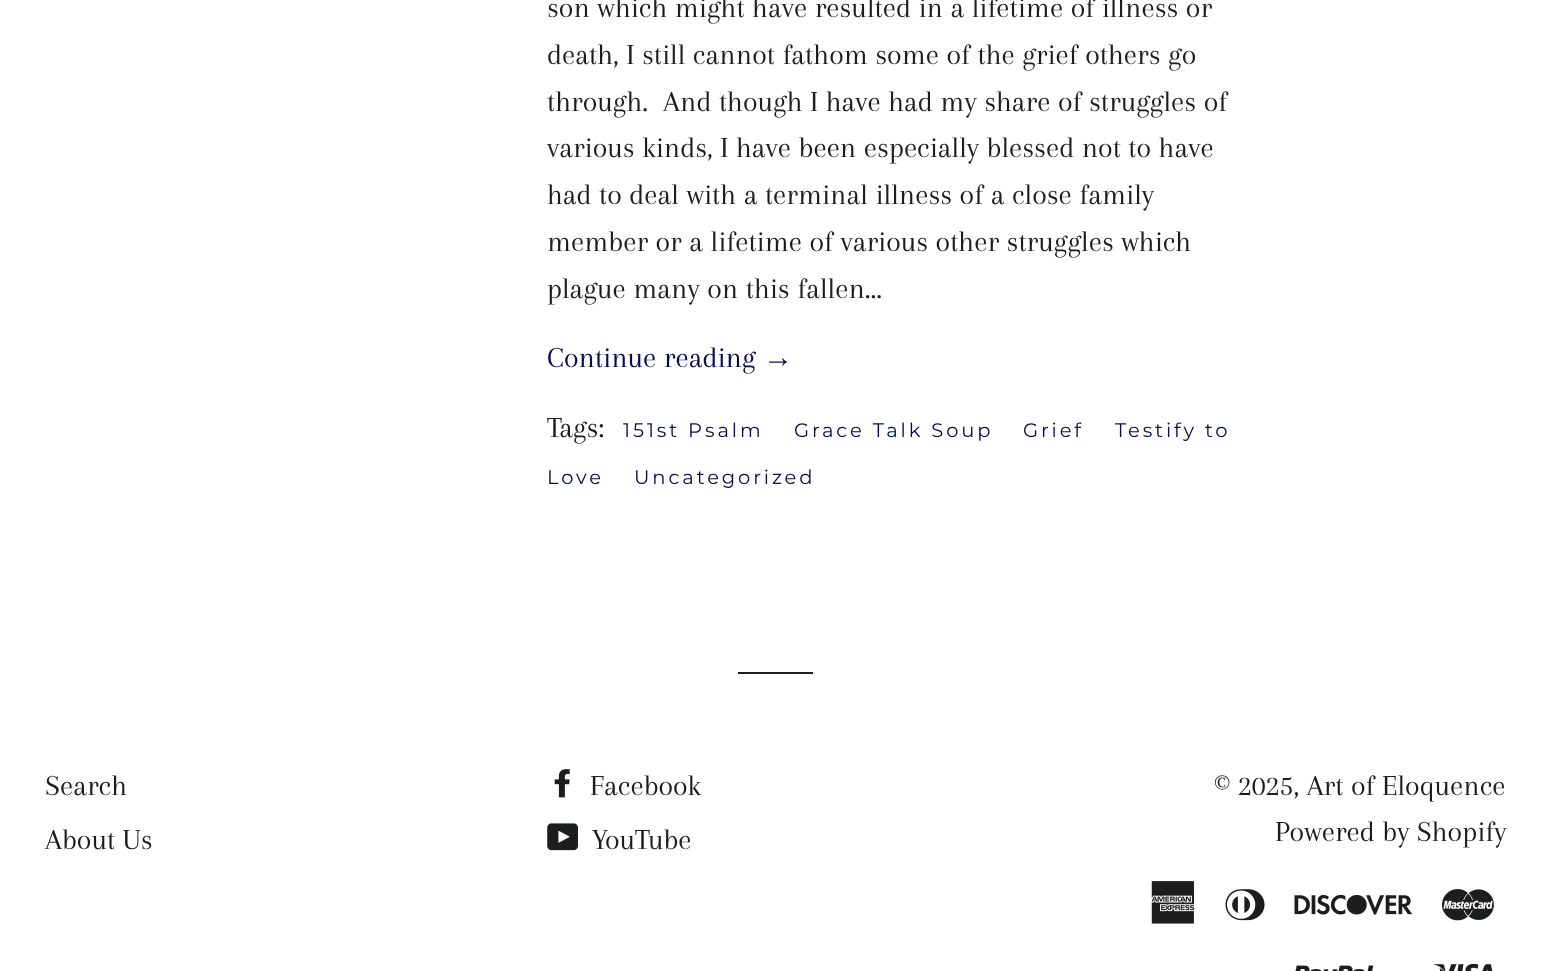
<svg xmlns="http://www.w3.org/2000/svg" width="1550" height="971">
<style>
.a{font:30px Arapey;fill:#1c1d1d}
.b{font:30px Arapey;fill:#060b4b}
.c{font:30px Liberation Serif;fill:#060b4b}
.d{font:100 19.5px Montserrat;letter-spacing:2.9px;fill:#060b4b}
</style>
<rect width="100%" height="100%" fill="#fff"/>
<path fill="#1c1d1d" d="M738 672h75v2H738z"/>
<image href="1.png" x="554" y="769" width="16" height="29"/>
<image href="2.png" x="547" y="823" width="31" height="28"/>
<image href="3.png" x="1151" y="881" width="44" height="43"/>
<image href="4.png" x="1225" y="889" width="40" height="32"/>
<image href="5.png" x="1294" y="894" width="119" height="21"/>
<image href="6.png" x="1442" y="889" width="52" height="32"/>
<image href="7.png" x="1295" y="965" width="79" height="6"/>
<image href="8.png" x="1434" y="963" width="59" height="8"/>
<text class="a" x="547" y="17">son which might have resulted in a lifetime of illness or</text>
<text class="a" x="547" y="64">death, I still cannot fathom some of the grief others go</text>
<text class="a" xml:space="preserve" x="547" y="111">through.  And though I have had my share of struggles of</text>
<text class="a" x="547" y="157">various kinds, I have been especially blessed not to have</text>
<text class="a" x="547" y="204">had to deal with a terminal illness of a close family</text>
<text class="a" x="547" y="251">member or a lifetime of various other struggles which</text>
<text class="a" x="547" y="298">plague many on this fallen...</text>
<text class="b" x="547" y="367">Continue reading</text>
<text class="c" x="763" y="367">→</text>
<text class="a" x="547" y="437">Tags:</text>
<text class="d" x="623" y="437">151st Psalm</text>
<text class="d" x="794" y="437">Grace Talk Soup</text>
<text class="d" x="1023" y="437">Grief</text>
<text class="d" x="1115" y="437">Testify to</text>
<text class="d" x="547" y="484">Love</text>
<text class="d" x="634" y="484">Uncategorized</text>
<text class="a" x="45" y="795">Search</text>
<text class="a" x="45" y="849">About Us</text>
<text class="a" x="590" y="795">Facebook</text>
<text class="a" x="592" y="849">YouTube</text>
<text class="a" x="1214" y="795">© 2025, Art of Eloquence</text>
<text class="a" x="1275" y="841">Powered by Shopify</text>
</svg>
